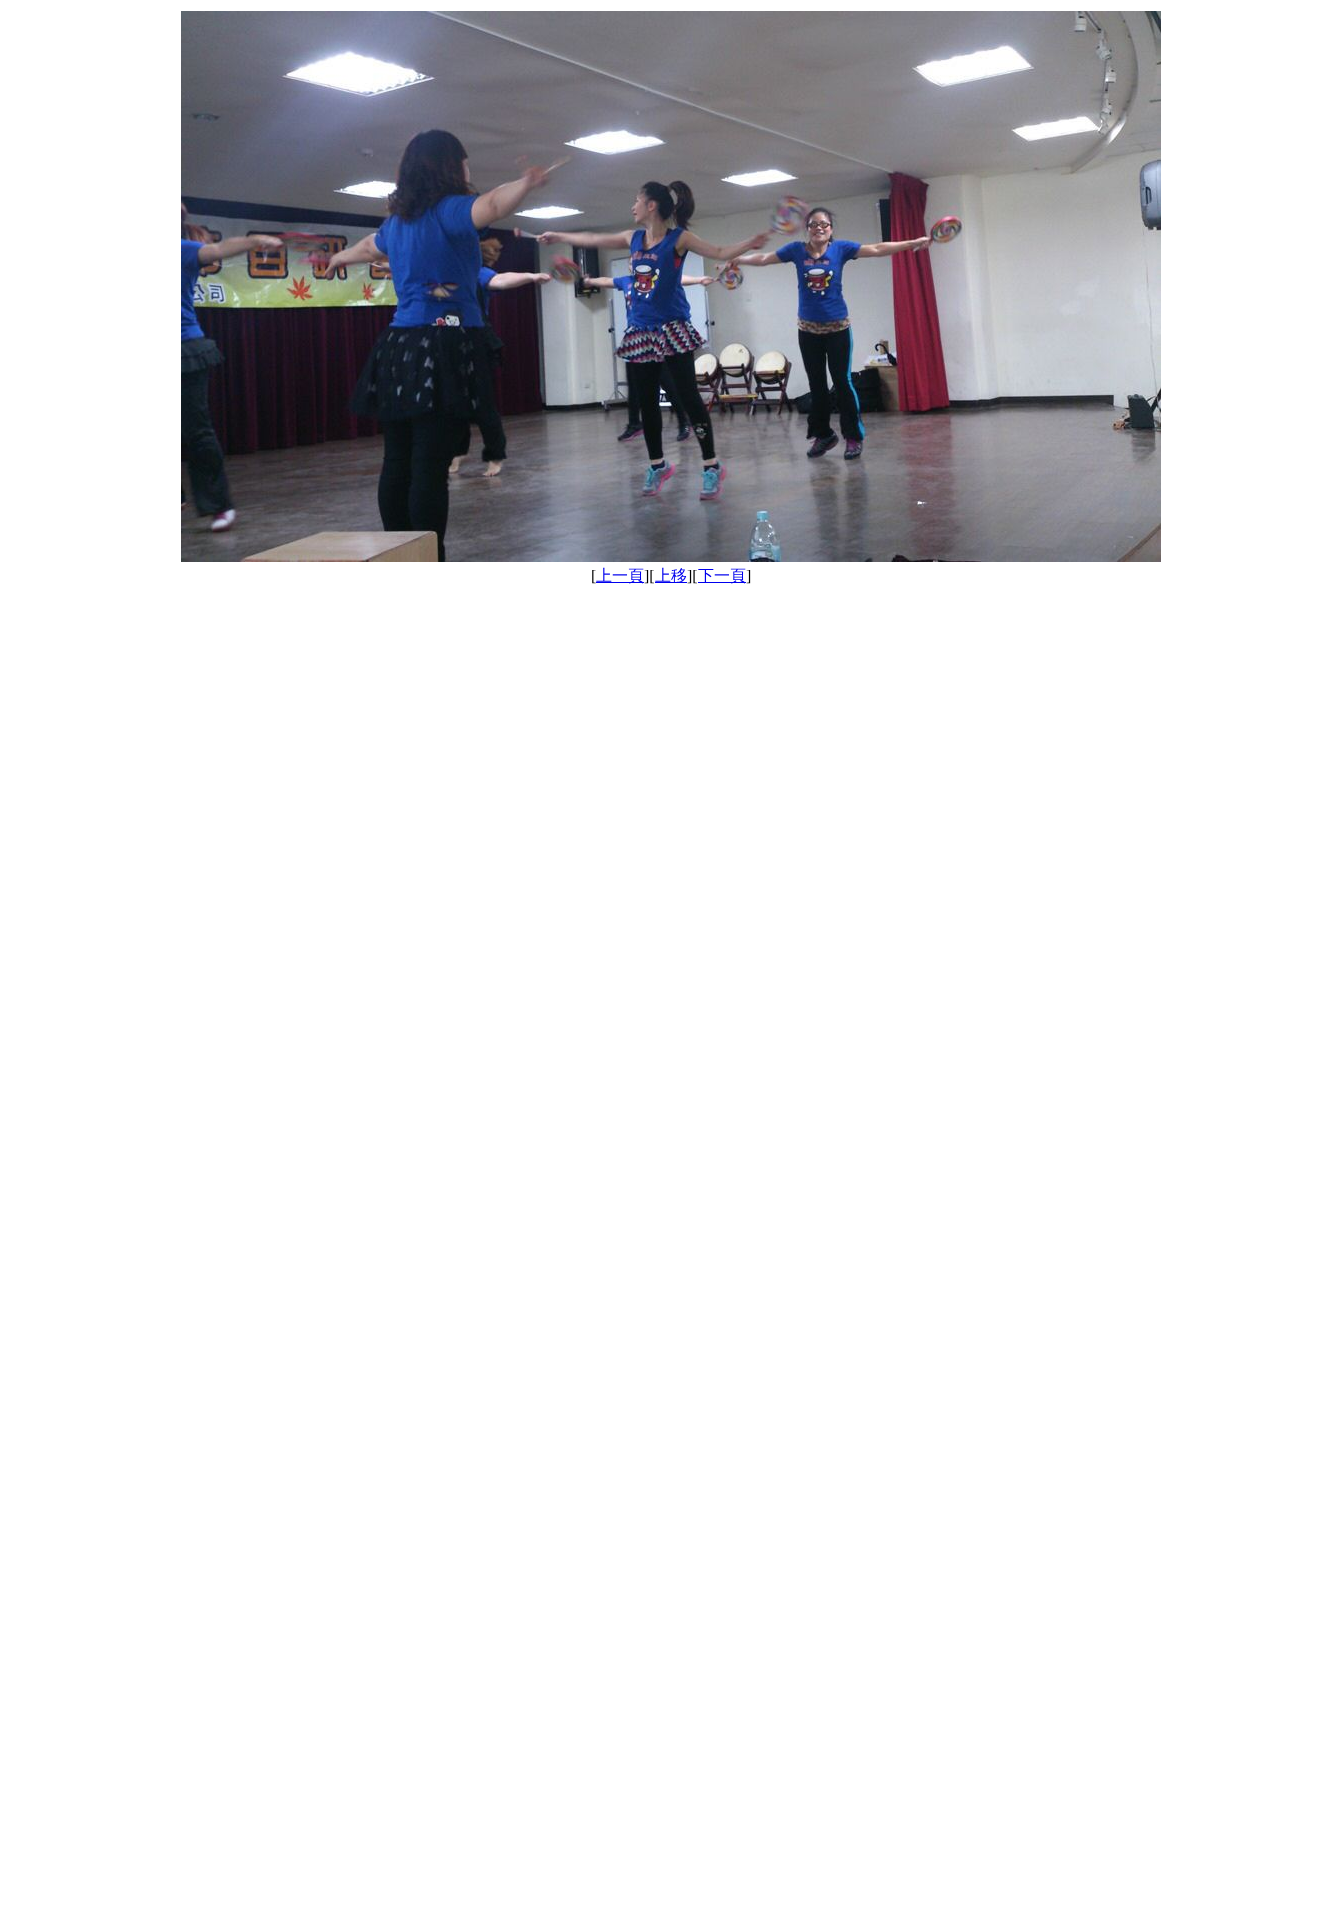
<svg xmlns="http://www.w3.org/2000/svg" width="1342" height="1923">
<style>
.a{font:16px Liberation Serif;fill:#000}
.b{font:500 16px WenQuanYi Zen Hei;fill:#00e}
</style>
<rect width="100%" height="100%" fill="#fff"/>
<image href="1.png" x="181" y="11" width="980" height="551"/>
<path fill="#00e" d="M596 582h48v1H596z"/>
<path fill="#00e" d="M655 582h32v1H655z"/>
<path fill="#00e" d="M698 582h48v1H698z"/>
<text class="a" x="591" y="581">[</text>
<text class="b" x="596" y="581">上一頁</text>
<text class="a" x="644" y="581">][</text>
<text class="b" x="655" y="581">上移</text>
<text class="a" x="687" y="581">][</text>
<text class="b" x="698" y="581">下一頁</text>
<text class="a" x="746" y="581">]</text>
</svg>
